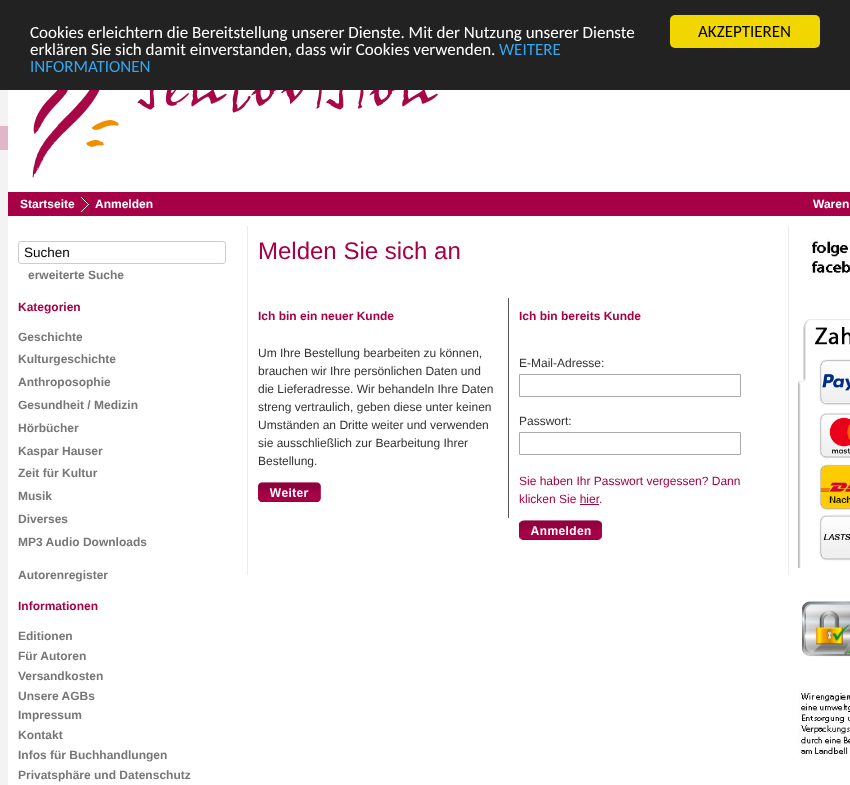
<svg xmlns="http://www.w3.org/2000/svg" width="850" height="785">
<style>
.a{font:17px Carlito;fill:#fff}
.b{font:17px Carlito;fill:#31a8f0}
.c{font:17px Carlito;fill:#000}
.d{font:bold 12px Liberation Sans;fill:#fff}
.e{font:13.5px Liberation Sans;fill:#000}
.f{font:bold 12px Liberation Sans;fill:#787777}
.g{font:bold 12px Liberation Sans;fill:#a60046}
.h{font:24px Liberation Sans;fill:#a60046}
.i{font:12px Liberation Sans;fill:#323232}
.j{font:12px Liberation Sans;fill:#a60046}
</style>
<rect width="100%" height="100%" fill="#f4f3f3"/>
<path fill="#e1b6c9" d="M0 126h8v24H0z"/>
<path fill="#222" d="M0 0h850v90H0z"/>
<rect fill="#f1d600" x="670" y="15" width="150" height="33" rx="5"/>
<path fill="#fff" d="M8 90h842v695H8z"/>
<image href="1.png" x="32" y="90" width="406" height="88"/>
<path fill="#a60046" d="M8 192h842v24H8z"/>
<image href="2.png" x="80" y="196" width="10" height="17"/>
<rect fill="none" stroke="#ccc" x="18.5" y="241.5" width="207" height="22" rx="2.5"/>
<path fill="#ececec" d="M788 226h1v349H788z"/>
<path fill="#ececec" d="M247 226h1v349H247z"/>
<path fill="#555" d="M508 298h1v220H508z"/>
<image href="3.png" x="258" y="482" width="63" height="20"/>
<path fill="none" stroke="#aaa" d="M519.5 374.5h221v22H519.5z"/>
<path fill="none" stroke="#aaa" d="M519.5 432.5h221v22H519.5z"/>
<path fill="#a60046" d="M580 504h19v1H580z"/>
<image href="4.png" x="519" y="520" width="83" height="20"/>
<image href="5.png" x="811" y="238" width="39" height="39"/>
<image href="6.png" x="798" y="319" width="52" height="249"/>
<image href="7.png" x="802" y="601" width="48" height="56"/>
<image href="8.png" x="798" y="688" width="52" height="66"/>
<text class="a" x="30" y="38">Cookies erleichtern die Bereitstellung unserer Dienste. Mit der Nutzung unserer Dienste</text>
<text class="a" x="30" y="55">erklären Sie sich damit einverstanden, dass wir Cookies verwenden.</text>
<text class="b" x="499" y="55">WEITERE</text>
<text class="b" x="30" y="72">INFORMATIONEN</text>
<text class="c" x="698" y="37">AKZEPTIEREN</text>
<text class="d" x="20" y="208">Startseite</text>
<text class="d" x="95" y="208">Anmelden</text>
<text class="d" x="813" y="208">Waren</text>
<text class="e" x="24" y="257">Suchen</text>
<text class="f" x="28" y="279">erweiterte Suche</text>
<text class="g" x="18" y="311">Kategorien</text>
<text class="f" x="18" y="341">Geschichte</text>
<text class="f" x="18" y="363">Kulturgeschichte</text>
<text class="f" x="18" y="386">Anthroposophie</text>
<text class="f" x="18" y="409">Gesundheit / Medizin</text>
<text class="f" x="18" y="432">Hörbücher</text>
<text class="f" x="18" y="455">Kaspar Hauser</text>
<text class="f" x="18" y="477">Zeit für Kultur</text>
<text class="f" x="18" y="500">Musik</text>
<text class="f" x="18" y="523">Diverses</text>
<text class="f" x="18" y="546">MP3 Audio Downloads</text>
<text class="f" x="18" y="579">Autorenregister</text>
<text class="g" x="18" y="610">Informationen</text>
<text class="f" x="18" y="640">Editionen</text>
<text class="f" x="18" y="660">Für Autoren</text>
<text class="f" x="18" y="680">Versandkosten</text>
<text class="f" x="18" y="700">Unsere AGBs</text>
<text class="f" x="18" y="719">Impressum</text>
<text class="f" x="18" y="739">Kontakt</text>
<text class="f" x="18" y="759">Infos für Buchhandlungen</text>
<text class="f" x="18" y="779">Privatsphäre und Datenschutz</text>
<text class="h" x="258" y="259">Melden Sie sich an</text>
<text class="g" x="258" y="320">Ich bin ein neuer Kunde</text>
<text class="i" x="258" y="357">Um Ihre Bestellung bearbeiten zu können,</text>
<text class="i" x="258" y="375">brauchen wir Ihre persönlichen Daten und</text>
<text class="i" x="258" y="393">die Lieferadresse. Wir behandeln Ihre Daten</text>
<text class="i" x="258" y="411">streng vertraulich, geben diese unter keinen</text>
<text class="i" x="258" y="429">Umständen an Dritte weiter und verwenden</text>
<text class="i" x="258" y="447">sie ausschließlich zur Bearbeitung Ihrer</text>
<text class="i" x="258" y="465">Bestellung.</text>
<text class="g" x="519" y="320">Ich bin bereits Kunde</text>
<text class="i" x="519" y="367">E-Mail-Adresse:</text>
<text class="i" x="519" y="425">Passwort:</text>
<text class="j" x="519" y="485">Sie haben Ihr Passwort vergessen? Dann</text>
<text class="j" x="519" y="503">klicken Sie hier</text>
<text class="j" x="599" y="503">.</text>
</svg>
